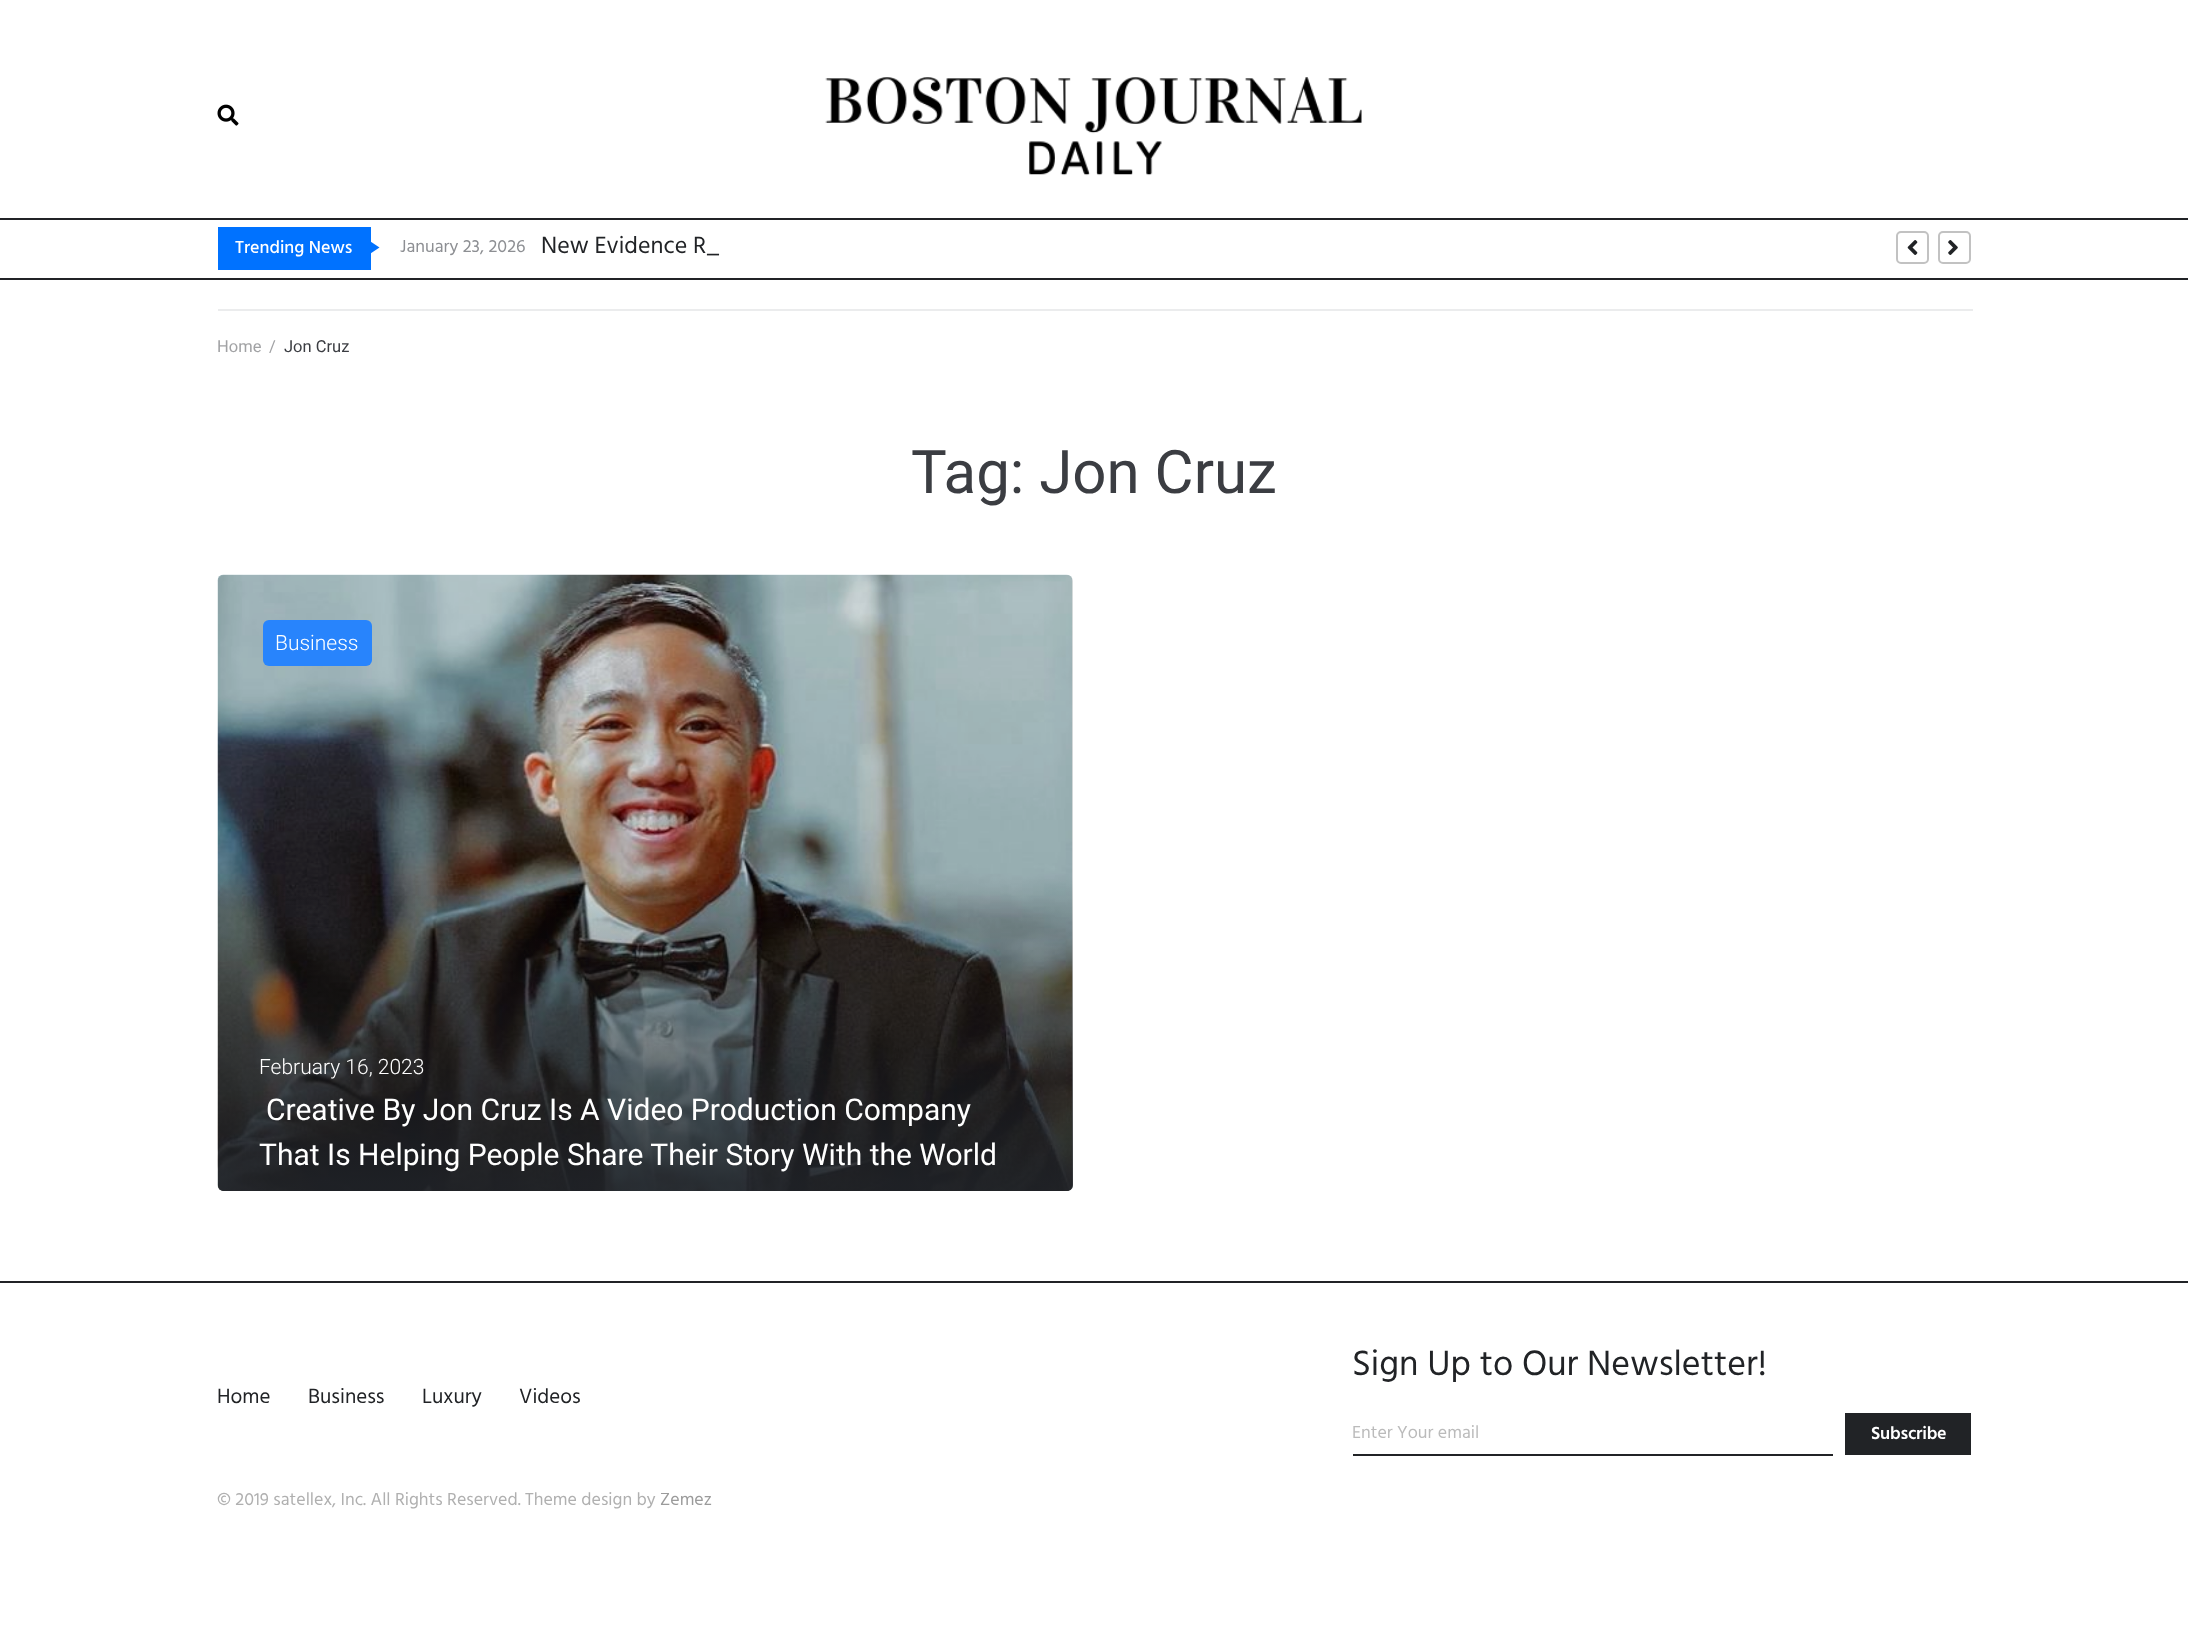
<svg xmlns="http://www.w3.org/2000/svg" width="2188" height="1634">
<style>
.a{font:500 18px Hind;fill:#fff}
.b{font:18px Hind;fill:#8d8f93}
.c{font:24px Hind;fill:#212326}
.d{font:16.5px Roboto;fill:#a1a2a4}
.e{font:16.5px Roboto;fill:#3b3d42}
.f{font:60px Roboto;fill:#3b3d42}
.g{font:300 21px Roboto;fill:#fff}
.h{font:30px Roboto;fill:#fff}
.i{font:21px Hind;fill:#212326}
.j{font:36px Hind;fill:#212326}
.k{font:18px Hind;fill:#bbb}
.l{font:600 18px Hind;letter-spacing:-0.25px;fill:#fff}
.m{font:18px Hind;fill:#b0b0b0}
.n{font:18px Hind;fill:#9b9b9b}
</style>
<defs>
<linearGradient id="g1" gradientUnits="userSpaceOnUse" x1="645" y1="822" x2="645" y2="1191"><stop offset="0" stop-color="#7abcff" stop-opacity="0"/><stop offset="0.15" stop-color="#212429" stop-opacity="0"/><stop offset="0.76" stop-color="#212429" stop-opacity="0.66"/><stop offset="0.97" stop-color="#212429" stop-opacity="0.89"/><stop offset="0.98" stop-color="#212429" stop-opacity="0.9"/></linearGradient>
</defs>
<rect width="100%" height="100%" fill="#fff"/>
<image href="1.png" x="217" y="104" width="22" height="22"/>
<image href="2.png" x="825" y="77" width="537" height="99"/>
<path fill="#212326" d="M0 218h2188v2H0z"/>
<path fill="#212326" d="M0 278h2188v2H0z"/>
<path fill="#0072ff" d="M218 227h153v43H218z"/>
<path fill="#0072ff" d="M370.5 253.5v-12l9 6z"/>
<rect fill="none" stroke="#c2c2c2" stroke-width="2" x="1897" y="232" width="31" height="31" rx="4"/>
<image href="3.png" x="1907" y="240" width="11" height="15"/>
<rect fill="none" stroke="#c2c2c2" stroke-width="2" x="1939" y="232" width="31" height="31" rx="4"/>
<image href="4.png" x="1948" y="240" width="10" height="15"/>
<path fill="#ebeced" d="M218 309h1755v2H218z"/>
<image href="5.png" x="217" y="574" width="856" height="617"/>
<rect fill="#0000001a" x="218" y="575" width="855" height="616" rx="6"/>
<rect fill="#2884fc" x="263" y="620" width="109" height="46" rx="6"/>
<path fill="url(#g1)" d="M218 822h855v363c0 3.5-2.5 6-6 6h-843c-3.5 0-6-2.5-6-6z"/>
<path fill="#212326" d="M0 1281h2188v2H0z"/>
<path fill="#212326" d="M1353 1454h480v2H1353z"/>
<path fill="#212326" d="M1845 1413h126v42H1845z"/>
<text class="a" x="235" y="253">Trending News</text>
<text class="b" x="400" y="252">January 23, 2026</text>
<text class="c" x="541" y="253">New Evidence R_</text>
<text class="d" x="217" y="352">Home</text>
<text class="d" x="269" y="352">/</text>
<text class="e" x="284" y="352">Jon Cruz</text>
<text class="f" x="911" y="493">Tag: Jon Cruz</text>
<text class="g" x="275" y="650">Business</text>
<text class="g" x="259" y="1074">February 16, 2023</text>
<text class="h" x="266" y="1120">Creative By Jon Cruz Is A Video Production Company</text>
<text class="h" x="259" y="1165">That Is Helping People Share Their Story With the World</text>
<text class="i" x="217" y="1403">Home</text>
<text class="i" x="308" y="1403">Business</text>
<text class="i" x="422" y="1403">Luxury</text>
<text class="i" x="519" y="1403">Videos</text>
<text class="j" x="1352" y="1375">Sign Up to Our Newsletter!</text>
<text class="k" x="1352" y="1438">Enter Your email</text>
<text class="l" x="1871" y="1439">Subscribe</text>
<text class="m" x="217" y="1505">© 2019 satellex, Inc. All Rights Reserved. Theme design by</text>
<text class="n" x="660" y="1505">Zemez</text>
</svg>
